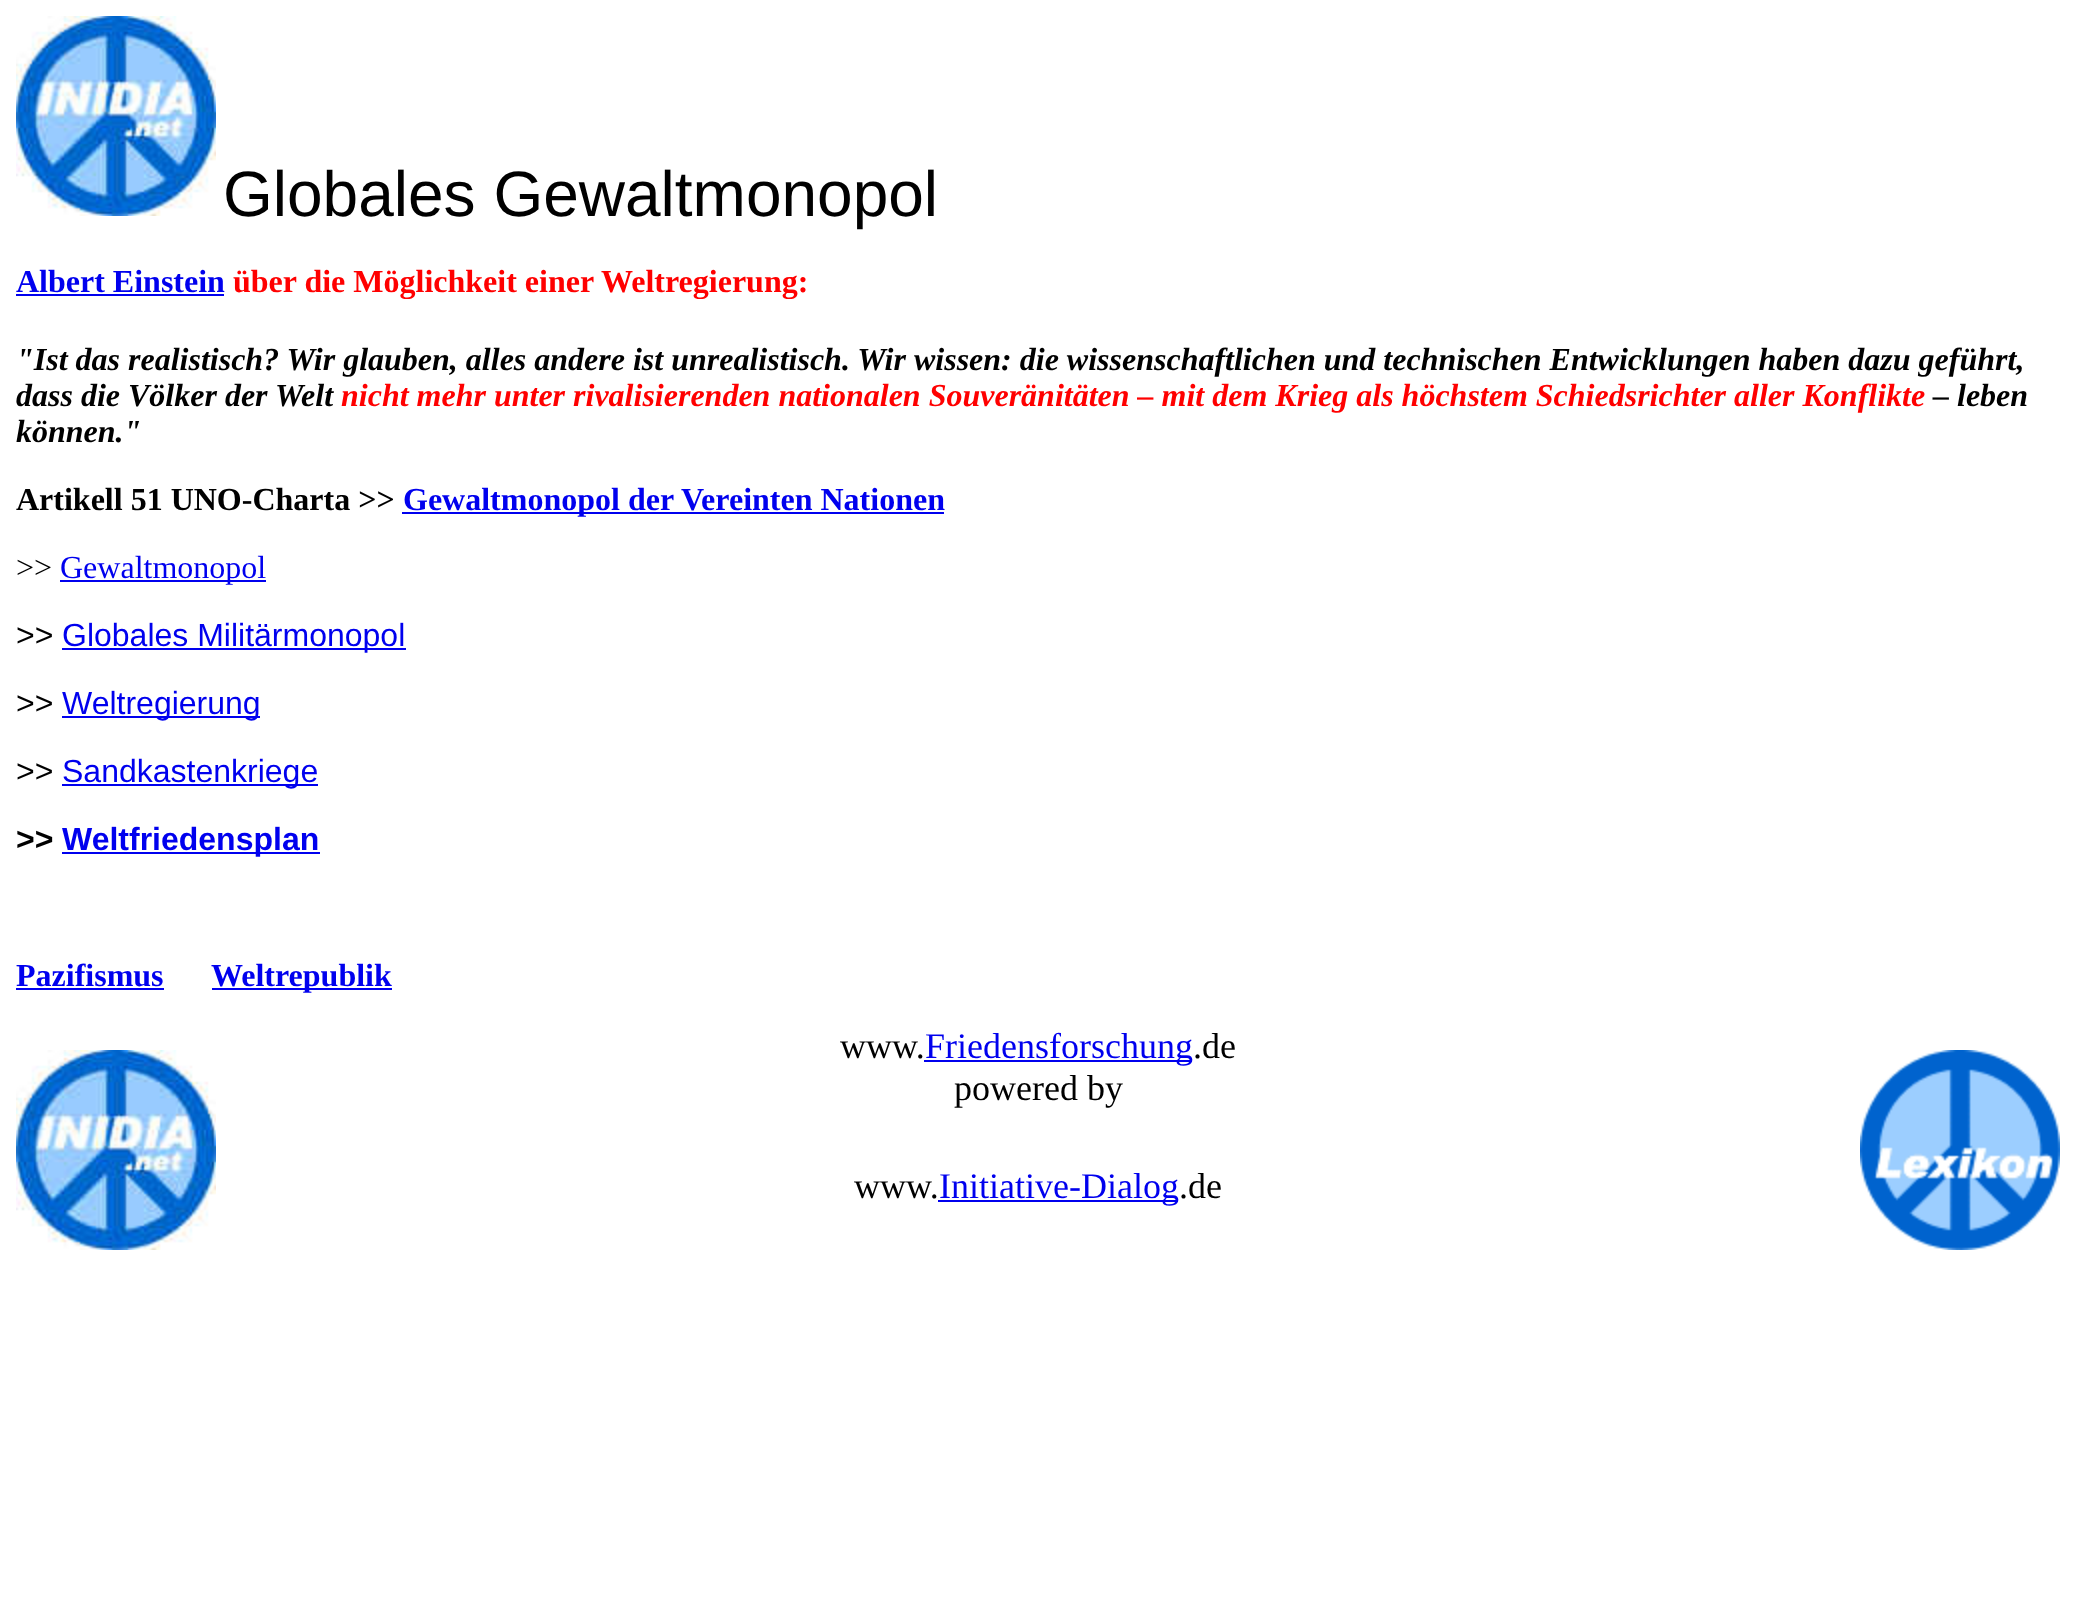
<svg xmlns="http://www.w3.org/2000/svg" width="2075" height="1608">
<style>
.a{font:64px Liberation Sans;fill:#000}
.b{font:bold 32px Liberation Serif;fill:#00e}
.c{font:bold 32px Liberation Serif;fill:#f00}
.d{font:italic bold 32px Liberation Serif;fill:#000}
.e{font:italic bold 32px Liberation Serif;fill:#f00}
.f{font:bold 32px Liberation Serif;fill:#000}
.g{font:32px Liberation Serif;fill:#000}
.h{font:32px Liberation Serif;fill:#00e}
.i{font:32px Liberation Sans;fill:#000}
.j{font:32px Liberation Sans;fill:#00e}
.k{font:bold 32px Liberation Sans;fill:#000}
.l{font:bold 32px Liberation Sans;fill:#00e}
.m{font:36px Liberation Serif;fill:#000}
.n{font:36px Liberation Serif;fill:#00e}
</style>
<rect width="100%" height="100%" fill="#fff"/>
<image href="1.png" x="16" y="16" width="200" height="200"/>
<path fill="#00e" d="M16 294h208v2H16z"/>
<path fill="#00e" d="M402 512h542v2H402z"/>
<path fill="#00e" d="M60 580h206v2H60z"/>
<path fill="#00e" d="M62 648h344v2H62z"/>
<path fill="#00e" d="M62 716h198v2H62z"/>
<path fill="#00e" d="M62 784h256v2H62z"/>
<path fill="#00e" d="M62 852h258v2H62z"/>
<path fill="#00e" d="M16 988h148v2H16z"/>
<path fill="#00e" d="M212 988h180v2H212z"/>
<image href="1.png" x="16" y="1050" width="200" height="200"/>
<path fill="#00e" d="M924 1060h268v2H924z"/>
<path fill="#00e" d="M938 1200h240v2H938z"/>
<image href="2.png" x="1860" y="1050" width="200" height="200"/>
<text class="a" x="223" y="216">Globales Gewaltmonopol</text>
<text class="b" x="16" y="292">Albert Einstein</text>
<text class="c" x="233" y="292">über die Möglichkeit einer Weltregierung:</text>
<text class="d" x="16" y="370">"Ist das realistisch? Wir glauben, alles andere ist unrealistisch. Wir wissen: die wissenschaftlichen und technischen Entwicklungen haben dazu geführt,</text>
<text class="d" x="16" y="406">dass die Völker der Welt</text>
<text class="e" x="341" y="406">nicht mehr unter rivalisierenden nationalen Souveränitäten – mit dem Krieg als höchstem Schiedsrichter aller Konflikte</text>
<text class="d" x="1933" y="406">– leben</text>
<text class="d" x="16" y="442">können."</text>
<text class="f" x="16" y="510">Artikell 51 UNO-Charta &gt;&gt;</text>
<text class="b" x="403" y="510">Gewaltmonopol der Vereinten Nationen</text>
<text class="g" x="16" y="578">&gt;&gt;</text>
<text class="h" x="60" y="578">Gewaltmonopol</text>
<text class="i" x="16" y="646">&gt;&gt;</text>
<text class="j" x="62" y="646">Globales Militärmonopol</text>
<text class="i" x="16" y="714">&gt;&gt;</text>
<text class="j" x="62" y="714">Weltregierung</text>
<text class="i" x="16" y="782">&gt;&gt;</text>
<text class="j" x="62" y="782">Sandkastenkriege</text>
<text class="k" x="16" y="850">&gt;&gt;</text>
<text class="l" x="62" y="850">Weltfriedensplan</text>
<text class="b" x="16" y="986">Pazifismus</text>
<text class="b" x="211" y="986">Weltrepublik</text>
<text class="m" x="840" y="1058">www.</text>
<text class="n" x="925" y="1058">Friedensforschung</text>
<text class="m" x="1193" y="1058">.de</text>
<text class="m" x="954" y="1100">powered by</text>
<text class="m" x="854" y="1198">www.</text>
<text class="n" x="939" y="1198">Initiative-Dialog</text>
<text class="m" x="1179" y="1198">.de</text>
</svg>
